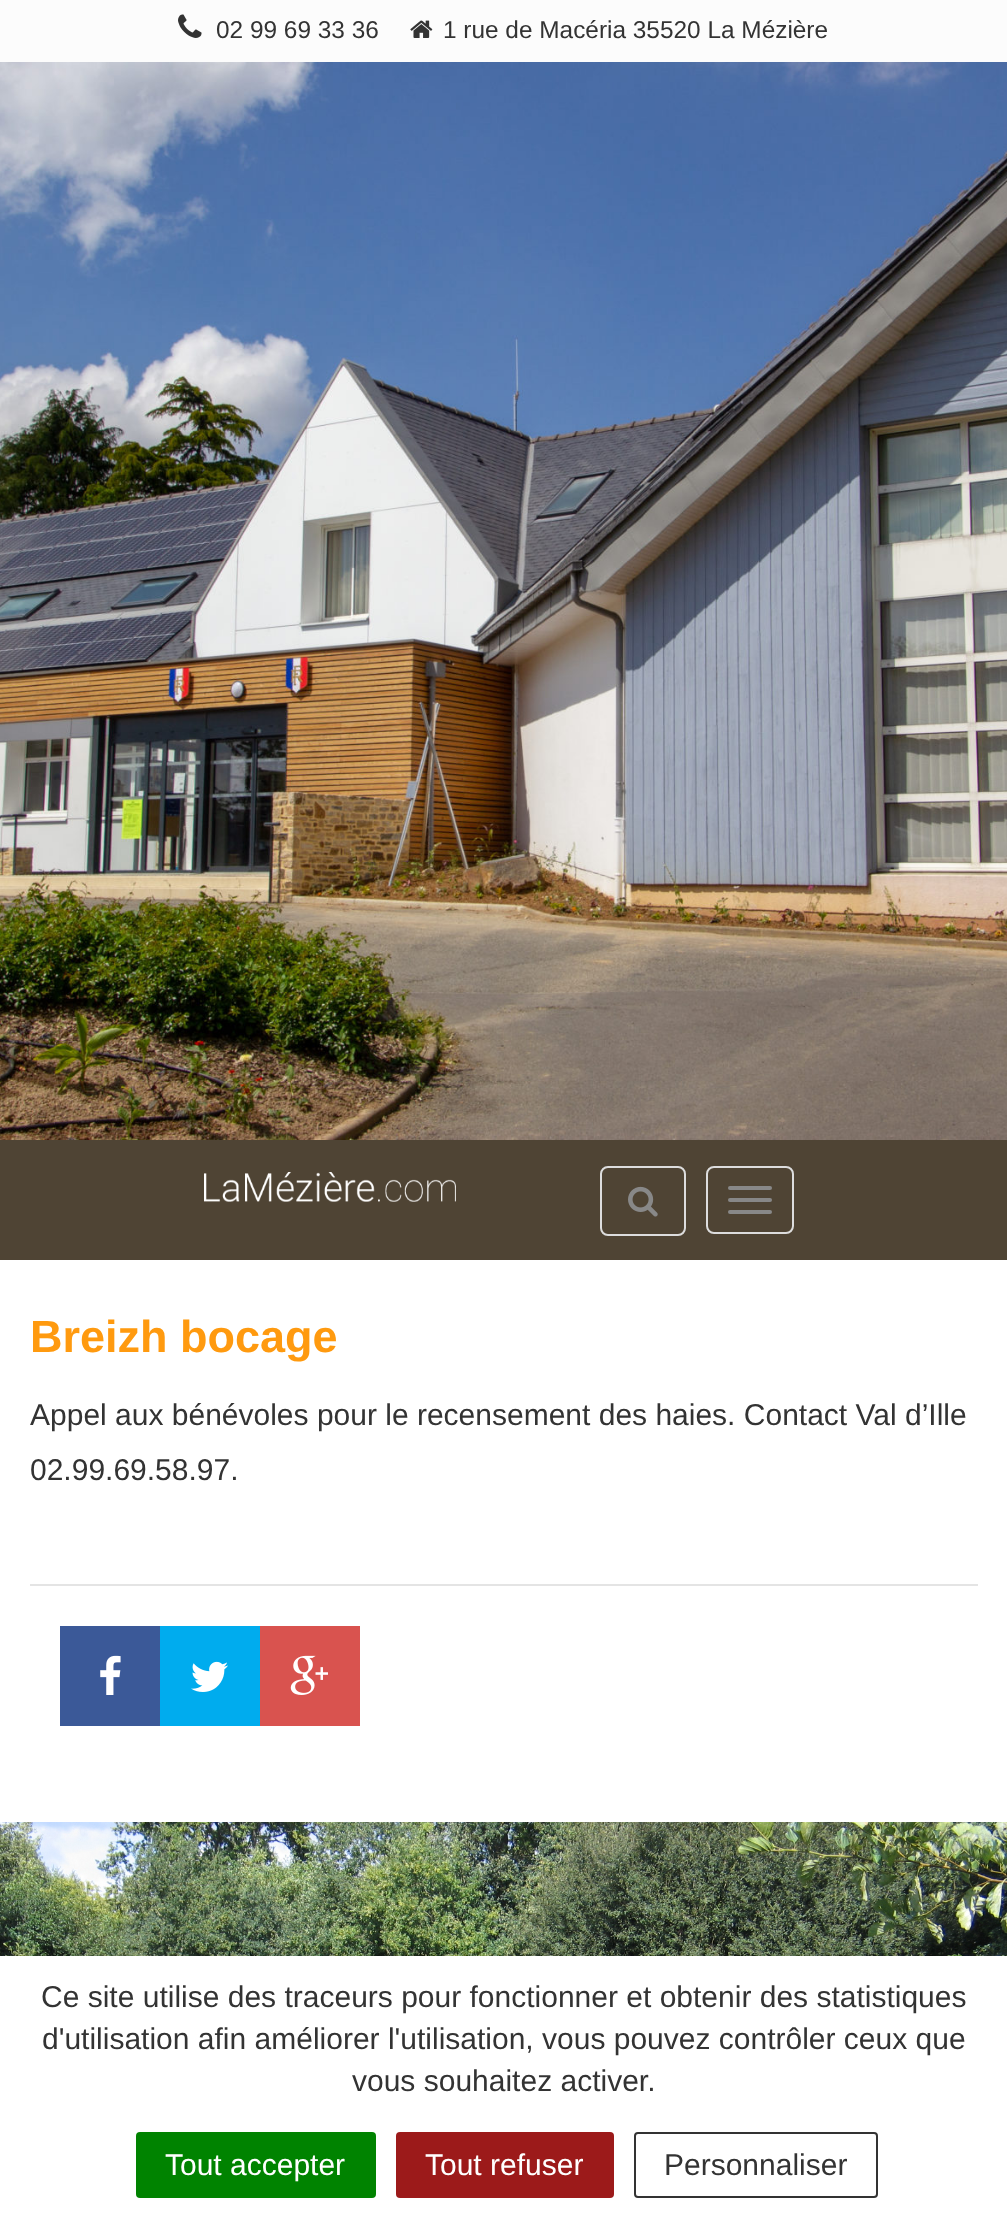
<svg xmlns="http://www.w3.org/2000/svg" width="1007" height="2228">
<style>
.a{font:24.4px Liberation Sans;fill:#333}
.b{font:bold 45px Liberation Sans;fill:#ff9a0f}
.c{font:30px Liberation Sans;fill:#333}
.d{font:30px Liberation Sans;fill:#fff}
</style>
<rect width="100%" height="100%" fill="#fff"/>
<image href="1.png" x="0" y="62" width="1007" height="1078"/>
<path fill="#fcfcfc" d="M0 0h1007v62H0z"/>
<image href="2.png" x="178" y="14" width="24" height="24"/>
<image href="3.png" x="410" y="20" width="23" height="18"/>
<path fill="#4f4434" d="M0 1140h1007v120H0z"/>
<image href="4.png" x="204" y="1172" width="252" height="30"/>
<rect fill="none" stroke="#ddd" stroke-width="2" x="601" y="1167" width="84" height="68" rx="7"/>
<image href="5.png" x="628" y="1186" width="30" height="31"/>
<rect fill="none" stroke="#ddd" stroke-width="2" x="707" y="1167" width="86" height="66" rx="7"/>
<rect fill="#888" x="728" y="1186" width="44" height="4" rx="2"/>
<rect fill="#888" x="728" y="1198" width="44" height="4" rx="2"/>
<rect fill="#888" x="728" y="1210" width="44" height="4" rx="2"/>
<path fill="#e4e4e4" d="M30 1584h948v2H30z"/>
<path fill="#3b5998" d="M60 1626h100v100H60z"/>
<image href="6.png" x="100" y="1655" width="21" height="40"/>
<path fill="#00acee" d="M160 1626h100v100H160z"/>
<image href="7.png" x="191" y="1661" width="37" height="31"/>
<path fill="#d9534f" d="M260 1626h100v100H260z"/>
<image href="8.png" x="290" y="1655" width="38" height="40"/>
<image href="9.png" x="0" y="1822" width="1007" height="134"/>
<path fill="#00000080" filter="blur(10px)" d="M0 1966h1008v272H0z"/>
<path fill="#fff" d="M0 1956h1007v272H0z"/>
<rect fill="#008300" x="136" y="2132" width="240" height="66" rx="4"/>
<rect fill="#9c1a1a" x="396" y="2132" width="218" height="66" rx="4"/>
<rect fill="none" stroke="#333" stroke-width="2" x="635" y="2133" width="242" height="64" rx="3"/>
<text class="a" x="216" y="38">02 99 69 33 36</text>
<text class="a" x="443" y="38">1 rue de Macéria 35520 La Mézière</text>
<text class="b" x="30" y="1352">Breizh bocage</text>
<text class="c" x="30" y="1425">Appel aux bénévoles pour le recensement des haies. Contact Val d’Ille</text>
<text class="c" x="30" y="1480">02.99.69.58.97.</text>
<text class="c" x="41" y="2007">Ce site utilise des traceurs pour fonctionner et obtenir des statistiques</text>
<text class="c" x="42" y="2049">d'utilisation afin améliorer l'utilisation, vous pouvez contrôler ceux que</text>
<text class="c" x="352" y="2091">vous souhaitez activer.</text>
<text class="d" x="165" y="2175">Tout accepter</text>
<text class="d" x="425" y="2175">Tout refuser</text>
<text class="c" x="664" y="2175">Personnaliser</text>
</svg>
